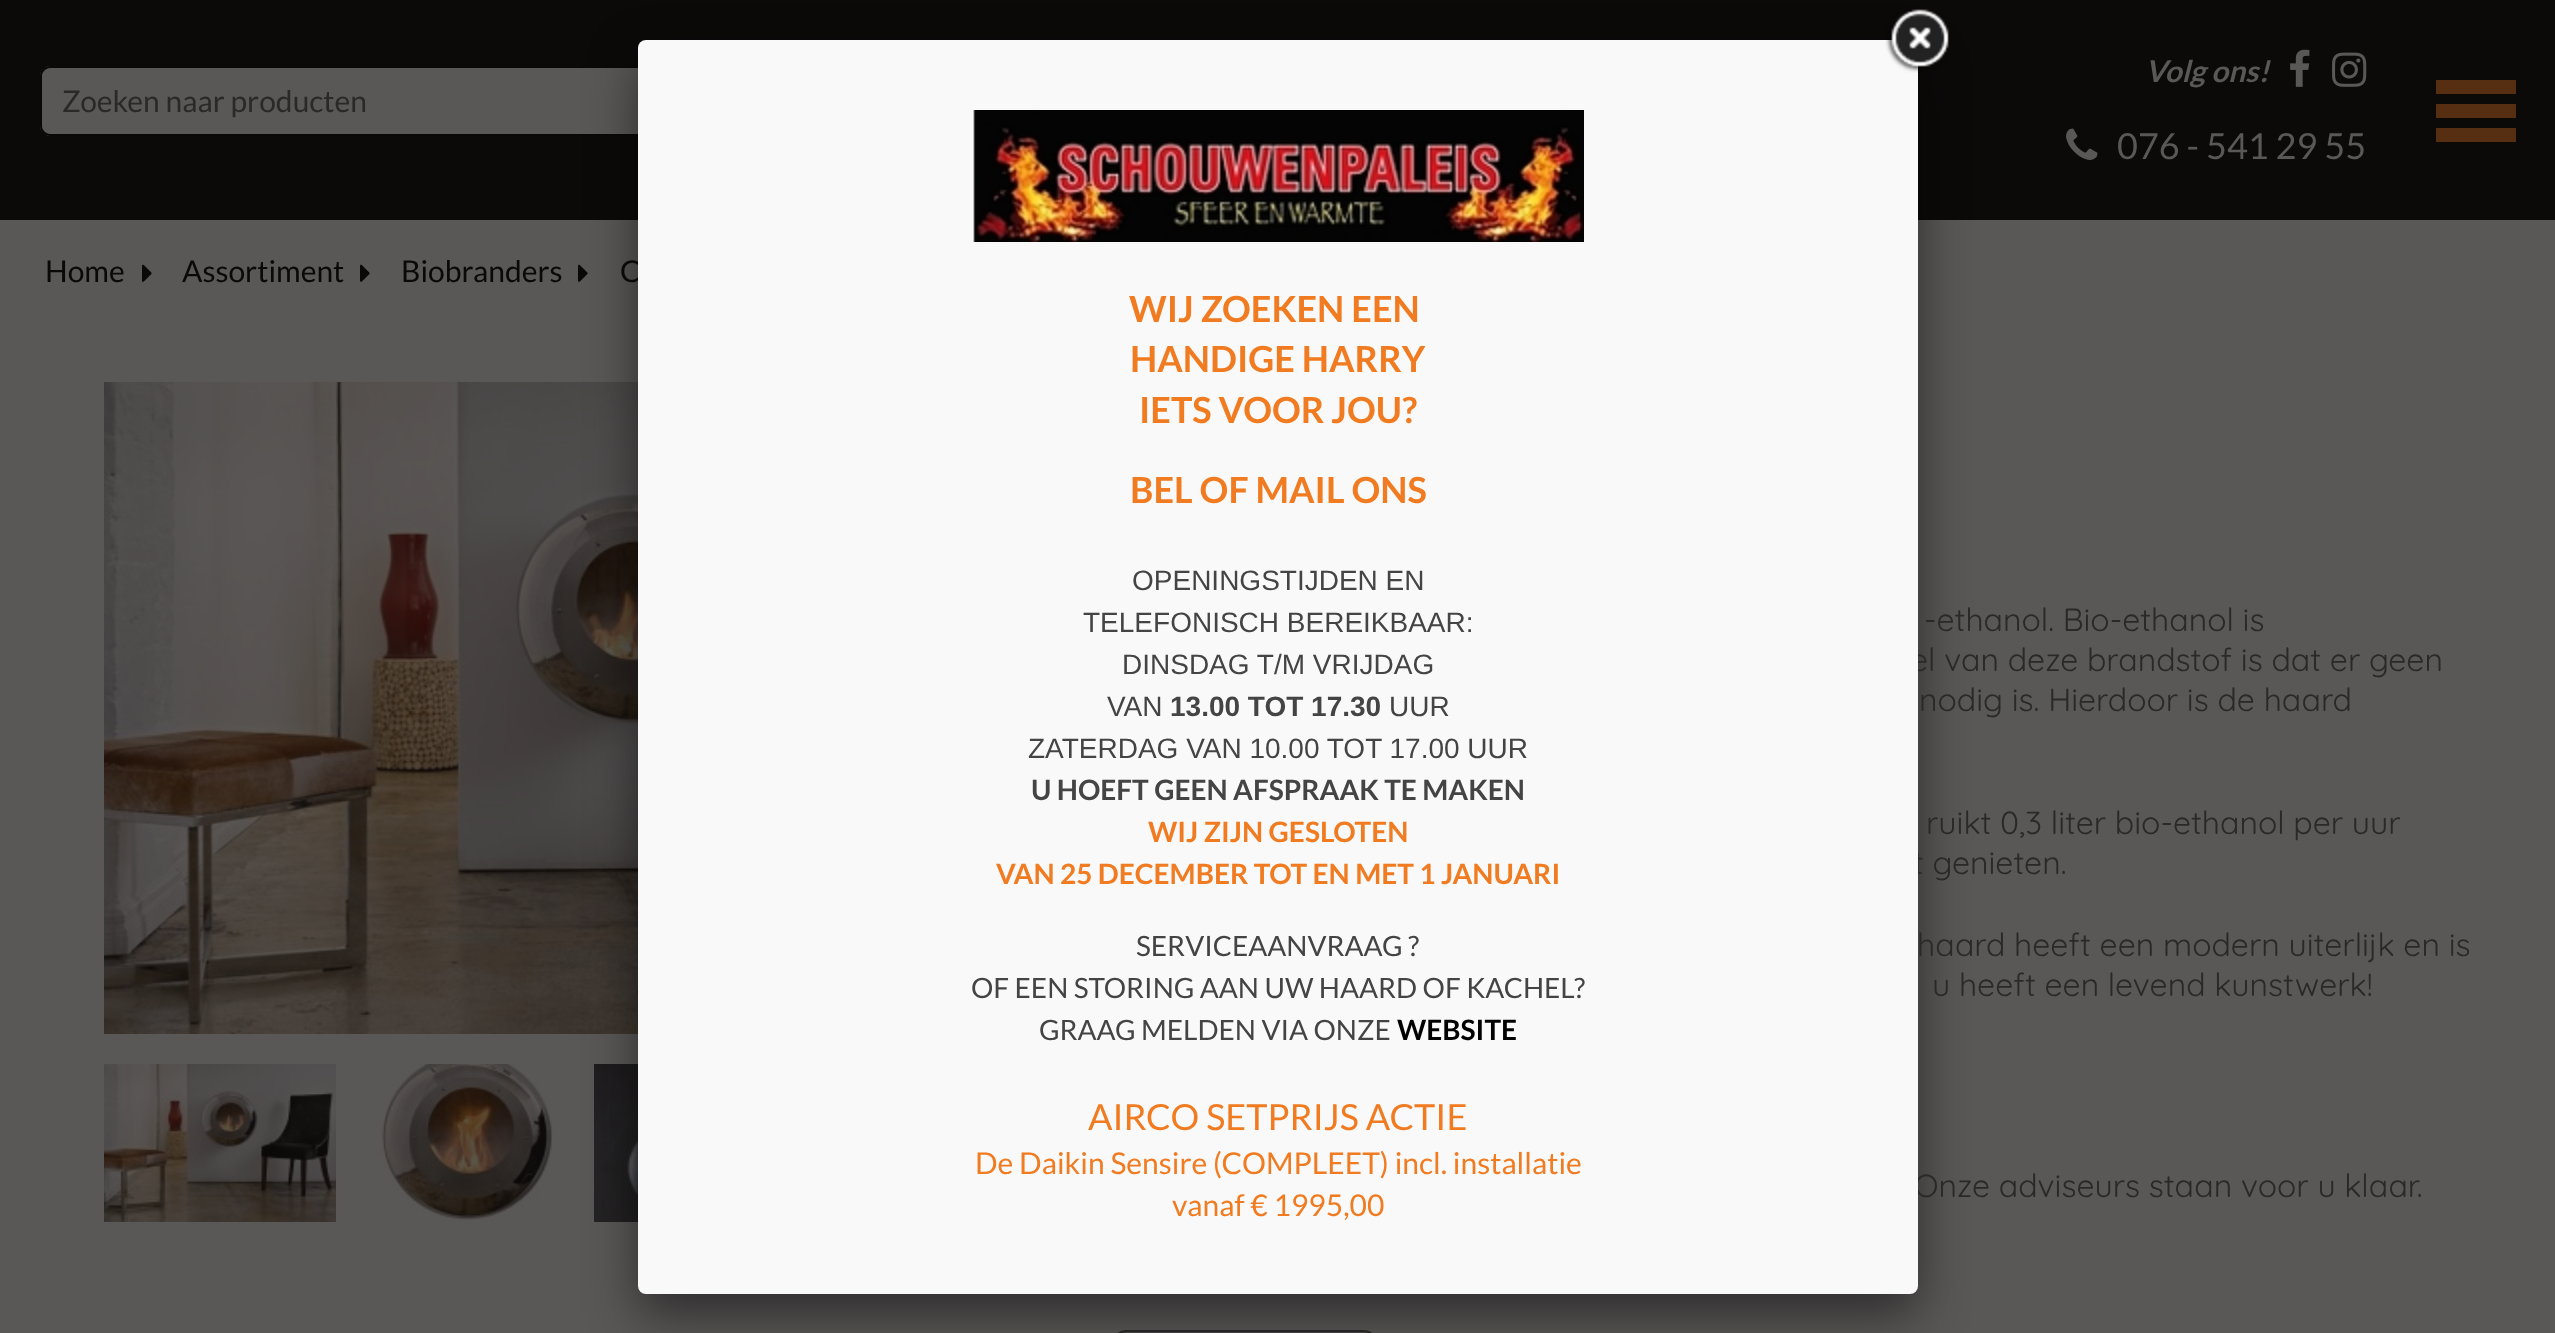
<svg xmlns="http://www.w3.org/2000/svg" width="2555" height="1333">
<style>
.a{font:30px Lato;fill:#2b2828}
.b{font:italic bold 30px Lato;fill:#5a5757}
.c{font:36px Lato;fill:#5a5757}
.d{font:30px Lato;fill:#0b0808}
.e{font:32px Quicksand;fill:#2b2828}
.f{font:bold 36px Lato;fill:#f17b20}
.g{font:28px Liberation Sans;fill:#444}
.h{font:bold 28px Liberation Sans;fill:#444}
.i{font:bold 28px Lato;fill:#444}
.j{font:bold 28px Lato;fill:#f17b20}
.k{font:28px Lato;fill:#444}
.l{font:bold 28px Lato;fill:#000}
.m{font:36px Lato;fill:#f17b20}
.n{font:30px Lato;fill:#f17b20}
</style>
<defs>
<clipPath id="clip1"><rect x="1116" y="1330" width="258" height="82" rx="10"/></clipPath>
<linearGradient id="g1" gradientUnits="userSpaceOnUse" x1="1245" y1="1332" x2="1245" y2="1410"><stop offset="0" stop-color="#4a4848"/><stop offset="1" stop-color="#2b2828"/></linearGradient>
</defs>
<rect width="100%" height="100%" fill="#5a5757"/>
<path fill="#0c0909" d="M0 0h2555v220H0z"/>
<path fill="#5a5757" d="M50 66h620v70h-620c-5.5 0-10-4.5-10-10v-50c0-5.5 4.5-10 10-10z"/>
<path fill="#0b0808" fill-rule="evenodd" d="M50 66h620v70h-620c-6 0-10-4-10-10v-50c0-6 4-10 10-10zm0 2h620v66h-620c-4 0-8-4-8-8v-50c0-4 4-8 8-8z"/>
<image href="1.png" x="2290" y="49" width="20" height="38"/>
<image href="2.png" x="2332" y="52" width="35" height="35"/>
<image href="3.png" x="2066" y="128" width="32" height="32"/>
<path fill="#562e12" d="M2436 80h80v14H2436z"/>
<path fill="#562e12" d="M2436 104h80v14H2436z"/>
<path fill="#562e12" d="M2436 128h80v14H2436z"/>
<image href="4.png" x="142" y="264" width="10" height="18"/>
<image href="4.png" x="360" y="264" width="10" height="18"/>
<image href="4.png" x="578" y="264" width="10" height="18"/>
<image href="5.png" x="104" y="382" width="534" height="652"/>
<image href="6.png" x="104" y="1064" width="232" height="158"/>
<image href="7.png" x="377" y="1064" width="176" height="158"/>
<image href="8.png" x="594" y="1064" width="44" height="158"/>
<g clip-path="url(#clip1)">
<path fill="url(#g1)" d="M1116 1332h258v1H1116z"/>
</g>
<rect fill="none" stroke="#2b2828" stroke-width="2" x="1117" y="1331" width="256" height="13" rx="9"/>
<rect fill="#00000080" filter="blur(25px)" x="638" y="60" width="1280" height="1254" rx="8"/>
<text class="a" x="62" y="112">Zoeken naar producten</text>
<text class="b" x="2145" y="82">Volg ons!</text>
<text class="c" x="2117" y="159">076 - 541 29 55</text>
<text class="d" x="45" y="282">Home</text>
<text class="d" x="182" y="282">Assortiment</text>
<text class="d" x="401" y="282">Biobranders</text>
<text class="d" x="620" y="282">C</text>
<text class="e" x="1924" y="631">-ethanol. Bio-ethanol is</text>
<text class="e" x="1910" y="671">el van deze brandstof is dat er geen</text>
<text class="e" x="1919" y="711">nodig is. Hierdoor is de haard</text>
<text class="e" x="1926" y="834">ruikt 0,3 liter bio-ethanol per uur</text>
<text class="e" x="1913" y="874">t genieten.</text>
<text class="e" x="1917" y="956">haard heeft een modern uiterlijk en is</text>
<text class="e" x="1932" y="996">u heeft een levend kunstwerk!</text>
<text class="e" x="1914" y="1197">Onze adviseurs staan voor u klaar.</text>
<rect fill="#f9f9f9" x="638" y="40" width="1280" height="1254" rx="8"/>
<image href="9.png" x="1885" y="9" width="64" height="64"/>
<image href="10.png" x="973" y="110" width="611" height="132"/>
<text class="f" x="1129" y="322">WIJ ZOEKEN EEN</text>
<text class="f" x="1130" y="372">HANDIGE HARRY</text>
<text class="f" x="1139" y="423">IETS VOOR JOU?</text>
<text class="f" x="1130" y="503">BEL OF MAIL ONS</text>
<text class="g" x="1132" y="590">OPENINGSTIJDEN EN</text>
<text class="g" x="1083" y="632">TELEFONISCH BEREIKBAAR:</text>
<text class="g" x="1122" y="674">DINSDAG T/M VRIJDAG</text>
<text class="g" x="1107" y="716">VAN</text>
<text class="h" x="1170" y="716">13.00 TOT 17.30</text>
<text class="g" x="1389" y="716">UUR</text>
<text class="g" x="1028" y="758">ZATERDAG VAN 10.00 TOT 17.00 UUR</text>
<text class="i" x="1031" y="800">U HOEFT GEEN AFSPRAAK TE MAKEN</text>
<text class="j" x="1148" y="842">WIJ ZIJN GESLOTEN</text>
<text class="j" x="996" y="884">VAN 25 DECEMBER TOT EN MET 1 JANUARI</text>
<text class="k" x="1136" y="956">SERVICEAANVRAAG ?</text>
<text class="k" x="971" y="998">OF EEN STORING AAN UW HAARD OF KACHEL?</text>
<text class="k" x="1039" y="1040">GRAAG MELDEN VIA ONZE</text>
<text class="l" x="1397" y="1040">WEBSITE</text>
<text class="m" x="1088" y="1130">AIRCO SETPRIJS ACTIE</text>
<text class="n" x="975" y="1174">De Daikin Sensire (COMPLEET) incl. installatie</text>
<text class="n" x="1172" y="1216">vanaf € 1995,00</text>
</svg>
